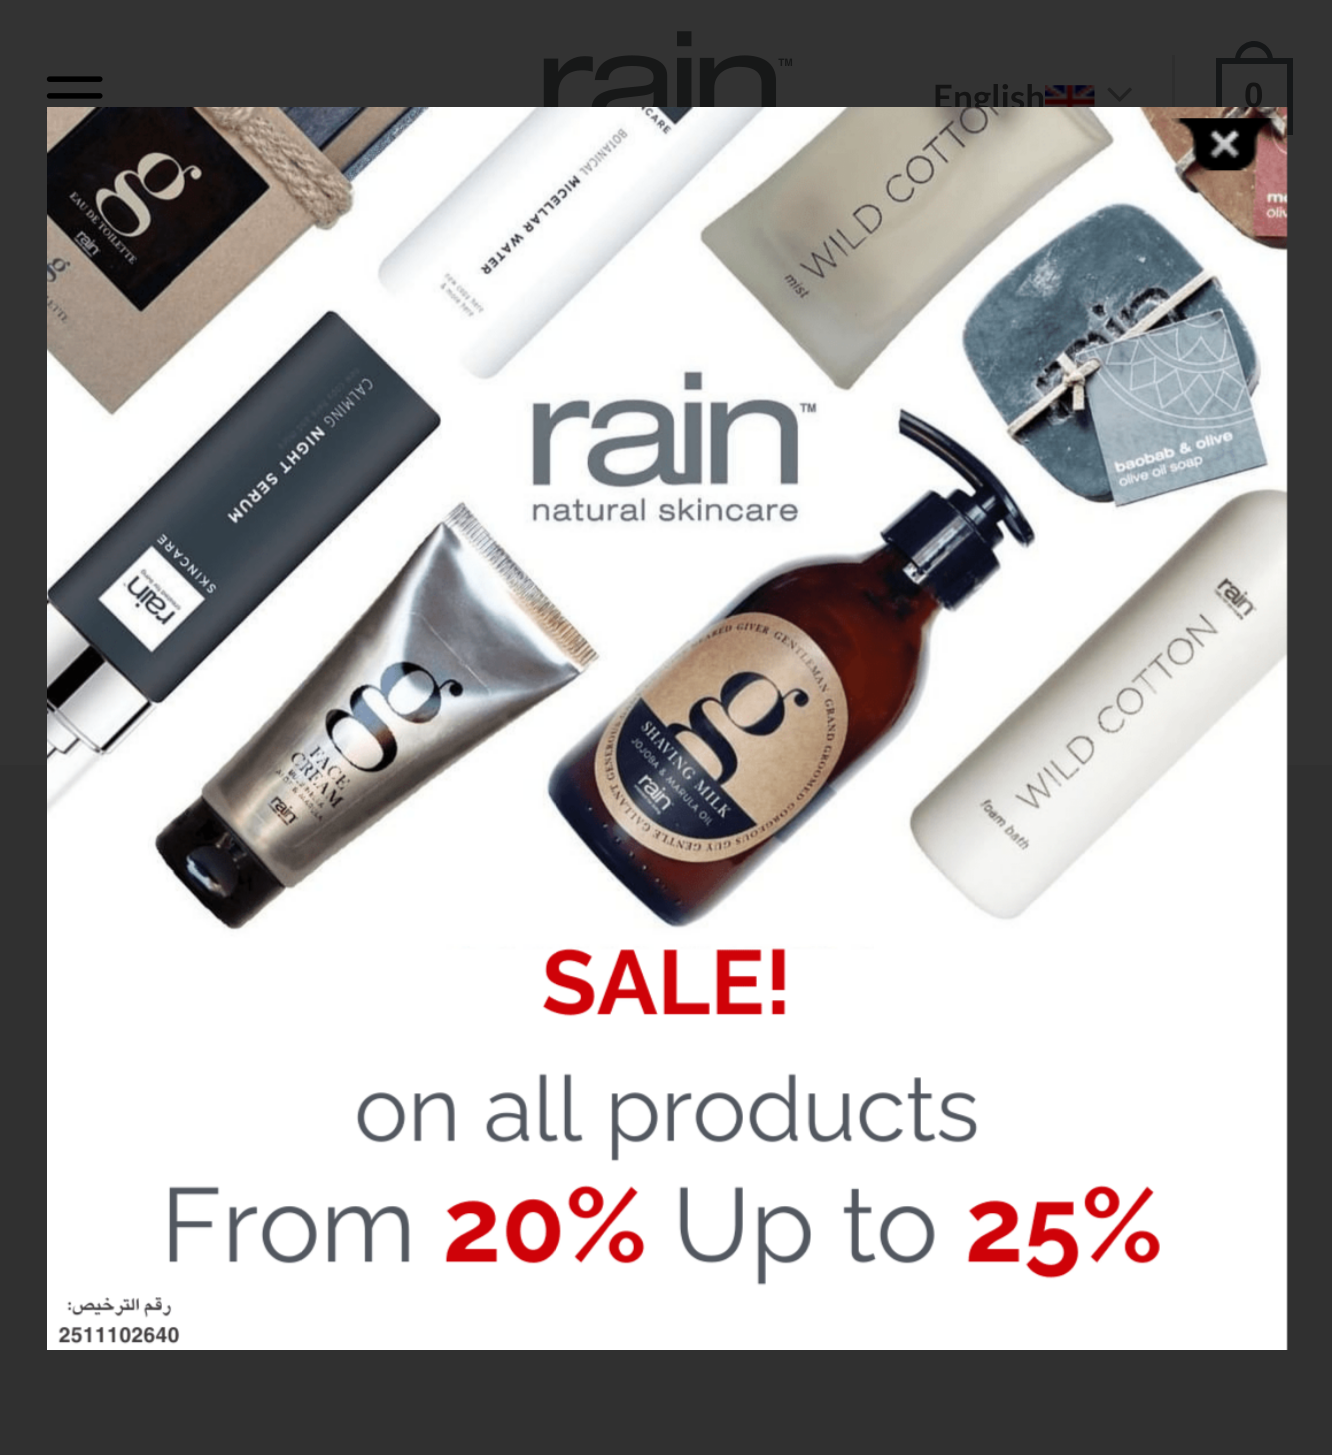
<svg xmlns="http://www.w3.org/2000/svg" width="1332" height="1455">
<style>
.a{font:bold 35px Lato;fill:#141414}
.b{font:bold 35px Liberation Sans;fill:#141414}
</style>
<rect width="100%" height="100%" fill="#303030"/>
<path fill="#333" d="M0 0h1332v765H0z"/>
<image href="1.png" x="46" y="76" width="57" height="38"/>
<image href="2.png" x="543" y="31" width="250" height="76"/>
<image href="3.png" x="1045" y="85" width="50" height="22"/>
<image href="4.png" x="1107" y="87" width="25" height="15"/>
<path fill="#2e2e2e" d="M1172 55h3v52H1172z"/>
<path fill="none" stroke="#151718" stroke-width="6" d="M1219 61h71v71H1219z"/>
<path fill="#151718" fill-rule="evenodd" d="M1254 41c10.5 0 19 9 19 19.5v2.5h-38v-2.5c0-10.5 8.5-19.5 19-19.5zm0 6c7.5 0 14 6 14 13.5v2.5h-28v-2.5c0-7.5 6.5-13.5 14-13.5z"/>
<text class="a" x="933" y="110">English</text>
<text class="b" x="1244" y="107">0</text>
<image href="5.png" x="47" y="107" width="1241" height="1243"/>
<image href="6.png" x="1171" y="118" width="106" height="54"/>
</svg>
